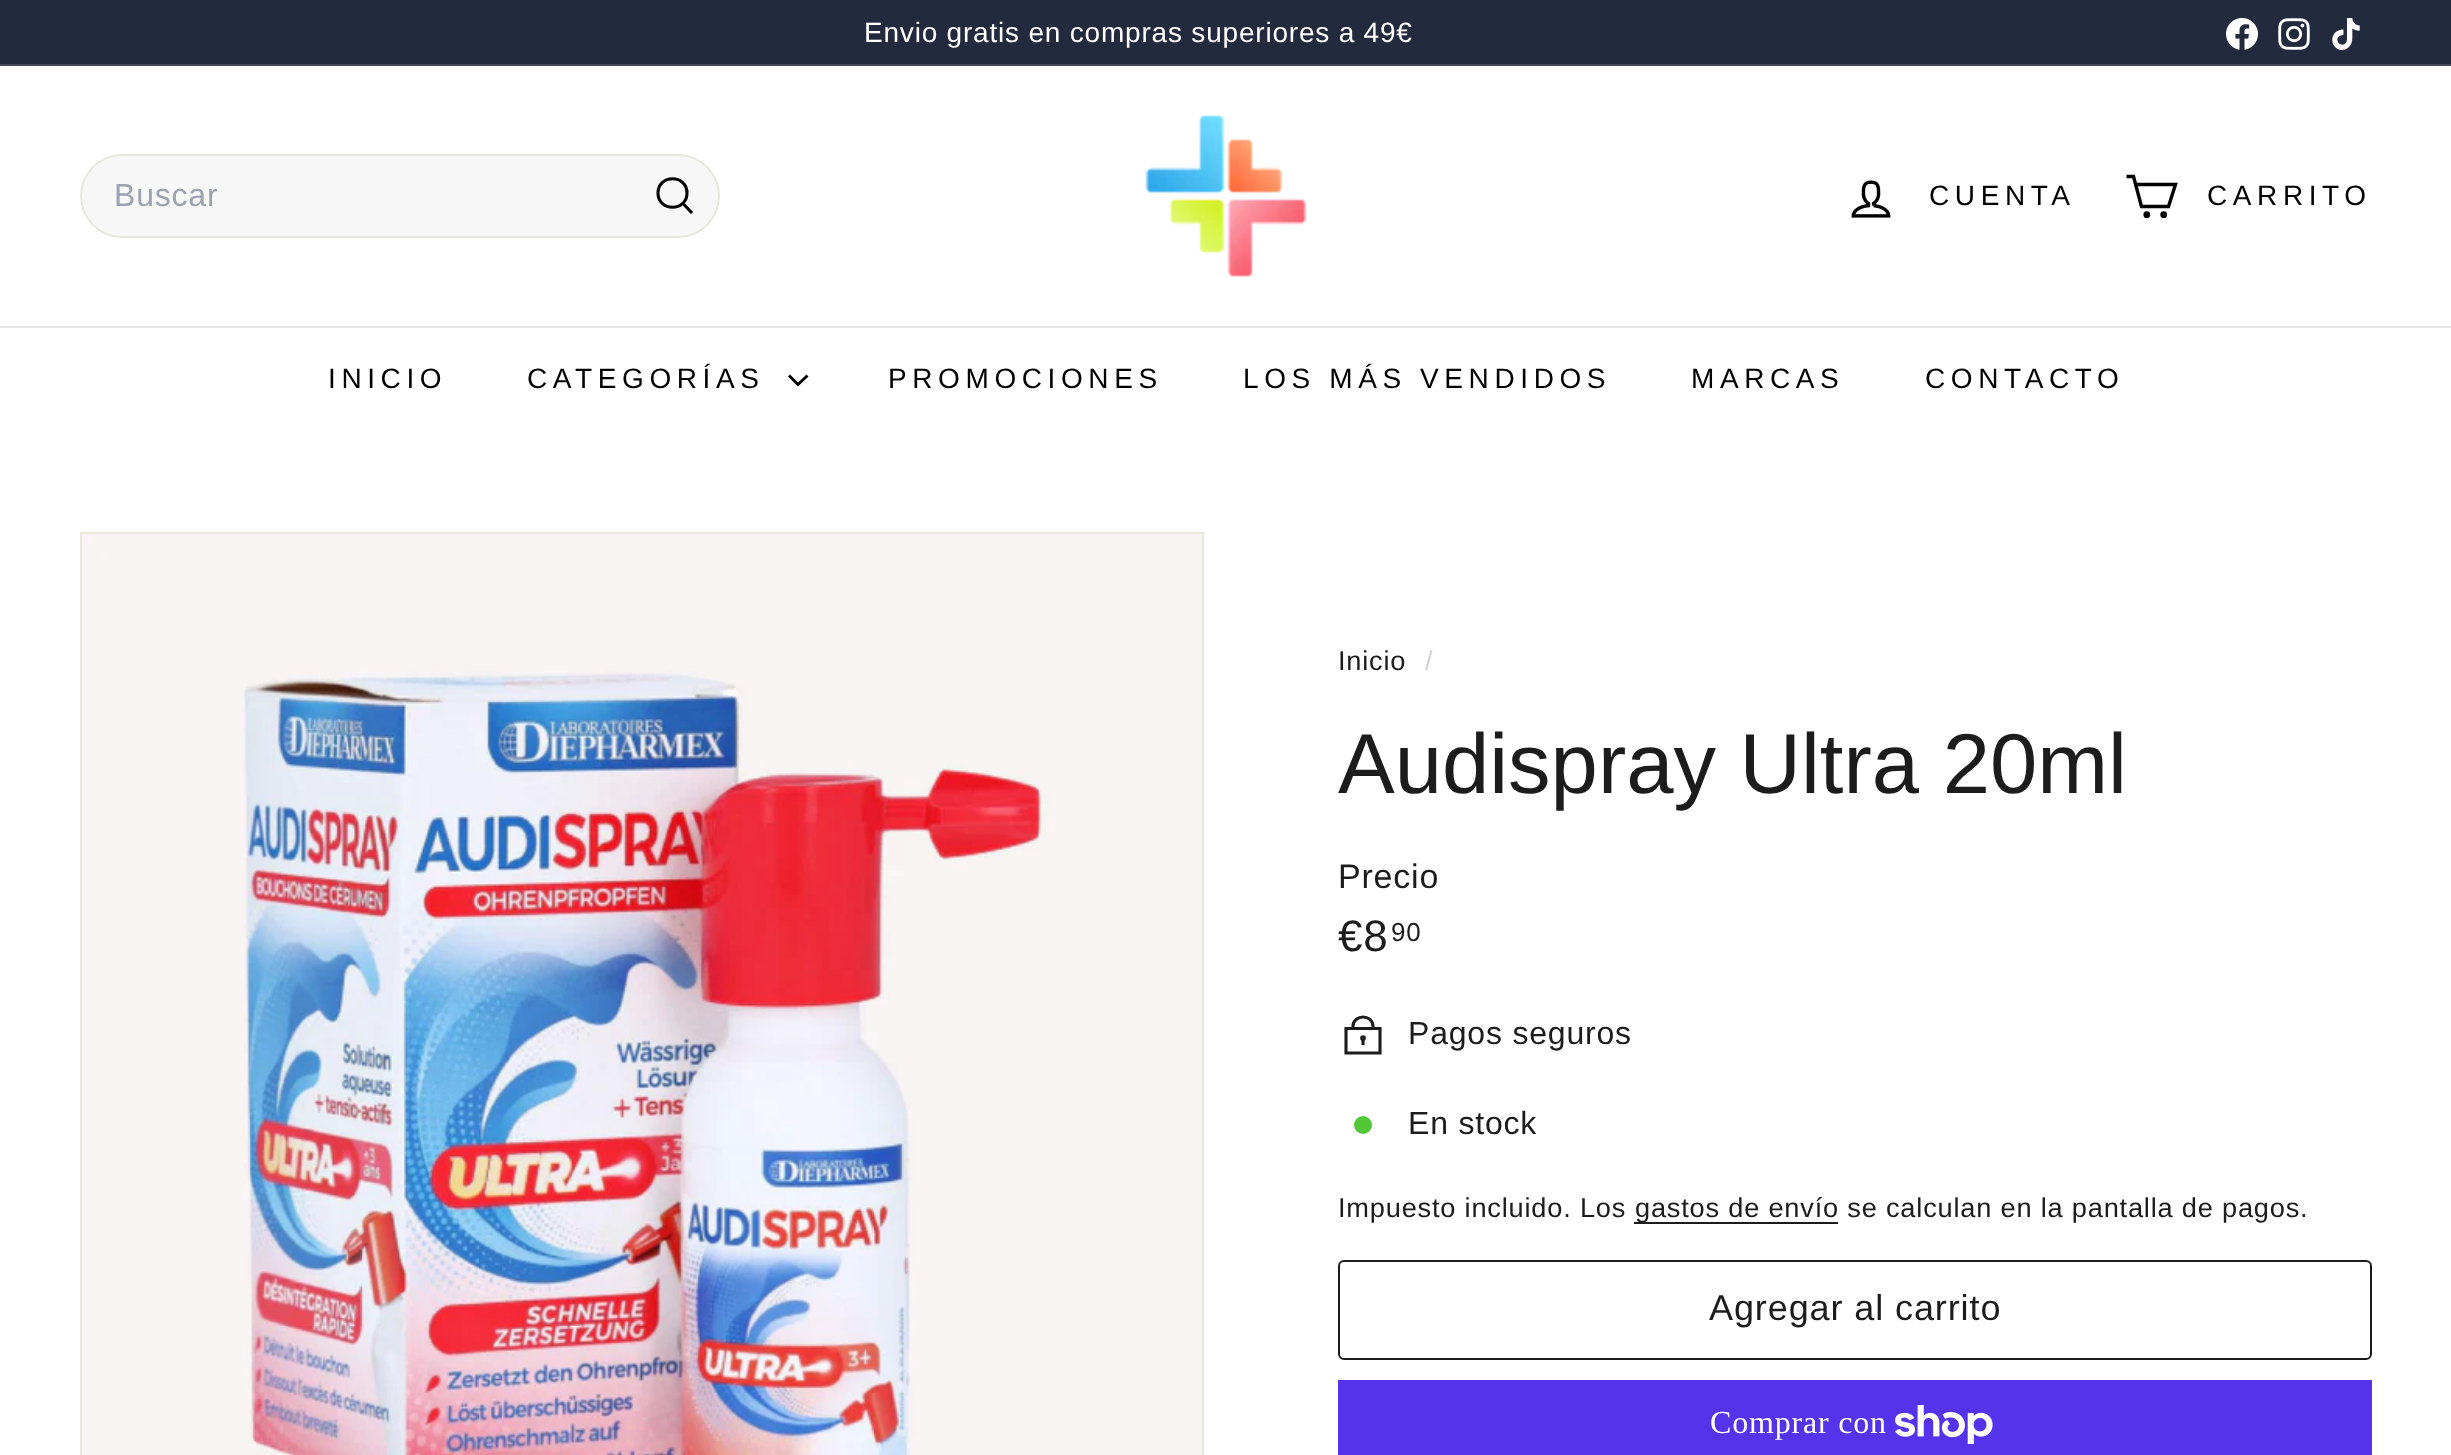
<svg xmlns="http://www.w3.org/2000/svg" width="2451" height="1455">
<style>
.a{font:28px Liberation Sans;letter-spacing:0.8px;fill:#fff}
.b{font:32px Liberation Sans;letter-spacing:0.8px;fill:#9ca3af}
.c{font:28px Liberation Sans;letter-spacing:5.6px;fill:#000}
.d{font:27.2px Liberation Sans;letter-spacing:0.8px;fill:#1c1c1c}
.e{font:27.2px Liberation Sans;letter-spacing:0.8px;fill:#d2d2d2}
.f{font:85px Liberation Sans;fill:#1c1c1c}
.g{font:34px Liberation Sans;letter-spacing:0.8px;fill:#1c1c1c}
.h{font:44px Liberation Sans;letter-spacing:0.8px;fill:#1c1c1c}
.i{font:26px Liberation Sans;letter-spacing:0.8px;fill:#1c1c1c}
.j{font:32px Liberation Sans;letter-spacing:0.8px;fill:#1c1c1c}
.k{font:36px Liberation Sans;letter-spacing:0.9px;fill:#1c1c1c}
.l{font:32px Liberation Serif;letter-spacing:0.8px;fill:#fff}
</style>
<rect width="100%" height="100%" fill="#fff"/>
<path fill="#242a3d" d="M0 0h2451v64H0z"/>
<image href="1.png" x="2226" y="18" width="32" height="32"/>
<image href="2.png" x="2278" y="18" width="32" height="32"/>
<image href="3.png" x="2332" y="18" width="28" height="32"/>
<path fill="#454a5a" d="M0 64h2451v2H0z"/>
<rect fill="#f7f7f7" stroke="#e8e8e1" stroke-width="2" x="81" y="155" width="638" height="82" rx="41"/>
<path fill="none" stroke="#000" stroke-width="3.1" d="M687 193c0 19-29 19-29 0c0-19 29-19 29 0m5 20l-9-9.5"/>
<image href="4.png" x="1145" y="114" width="162" height="164"/>
<image href="5.png" x="1851" y="180" width="40" height="38"/>
<path fill="none" stroke="#000" stroke-width="3.4" d="M2136 184.5h39.5l-7 22h-27l-8-30h-7"/>
<circle fill="none" stroke="#000" stroke-width="3.4" cx="2146.8" cy="214.7" r="1.7"/>
<circle fill="none" stroke="#000" stroke-width="3.4" cx="2163.7" cy="214.7" r="1.7"/>
<path fill="#e6e6e6" d="M0 326h2451v2H0z"/>
<path fill="none" stroke="#000" stroke-width="2.9" d="M789 375.5l9 9l9.5-9"/>
<path fill="none" stroke="#e8e8e1" stroke-width="2" d="M81 533h1122v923H81z"/>
<image href="6.png" x="82" y="534" width="1120" height="921"/>
<path fill="none" stroke="#1c1c1c" stroke-width="3.1" d="M1353 1028.5v-2.5c0-5.5 5-9 10-9c5.5 0 10 4 10 9v2.5m-27 0h34v24.5h-34zm17 11v5.5"/>
<circle fill="none" stroke="#1c1c1c" stroke-width="3.1" cx="1363" cy="1038" r="1.3"/>
<circle fill="#54c63a" cx="1363" cy="1125" r="9"/>
<path fill="#1c1c1c" d="M1634 1222h204v2H1634z"/>
<rect fill="none" stroke="#1c1c1c" stroke-width="2" x="1339" y="1261" width="1032" height="98" rx="5"/>
<path fill="#5433eb" d="M1338 1380h1034v75H1338z"/>
<image href="7.png" x="1895" y="1405" width="98" height="39"/>
<text class="a" x="864" y="42">Envio gratis en compras superiores a 49€</text>
<text class="b" x="114" y="206">Buscar</text>
<text class="c" x="1929" y="205">CUENTA</text>
<text class="c" x="2207" y="205">CARRITO</text>
<text class="c" x="328" y="388">INICIO</text>
<text class="c" x="527" y="388">CATEGORÍAS</text>
<text class="c" x="888" y="388">PROMOCIONES</text>
<text class="c" x="1243" y="388">LOS MÁS VENDIDOS</text>
<text class="c" x="1691" y="388">MARCAS</text>
<text class="c" x="1925" y="388">CONTACTO</text>
<text class="d" x="1338" y="670">Inicio</text>
<text class="e" x="1425" y="670">/</text>
<text class="f" x="1338" y="793">Audispray Ultra 20ml</text>
<text class="g" x="1338" y="888">Precio</text>
<text class="h" x="1338" y="951">€8</text>
<text class="i" x="1391" y="941">90</text>
<text class="j" x="1408" y="1044">Pagos seguros</text>
<text class="j" x="1408" y="1134">En stock</text>
<text class="d" x="1338" y="1217">Impuesto incluido. Los</text>
<text class="d" x="1635" y="1217">gastos de envío se calculan en la pantalla de pagos.</text>
<text class="k" x="1709" y="1320">Agregar al carrito</text>
<text class="l" x="1710" y="1433">Comprar con</text>
</svg>
